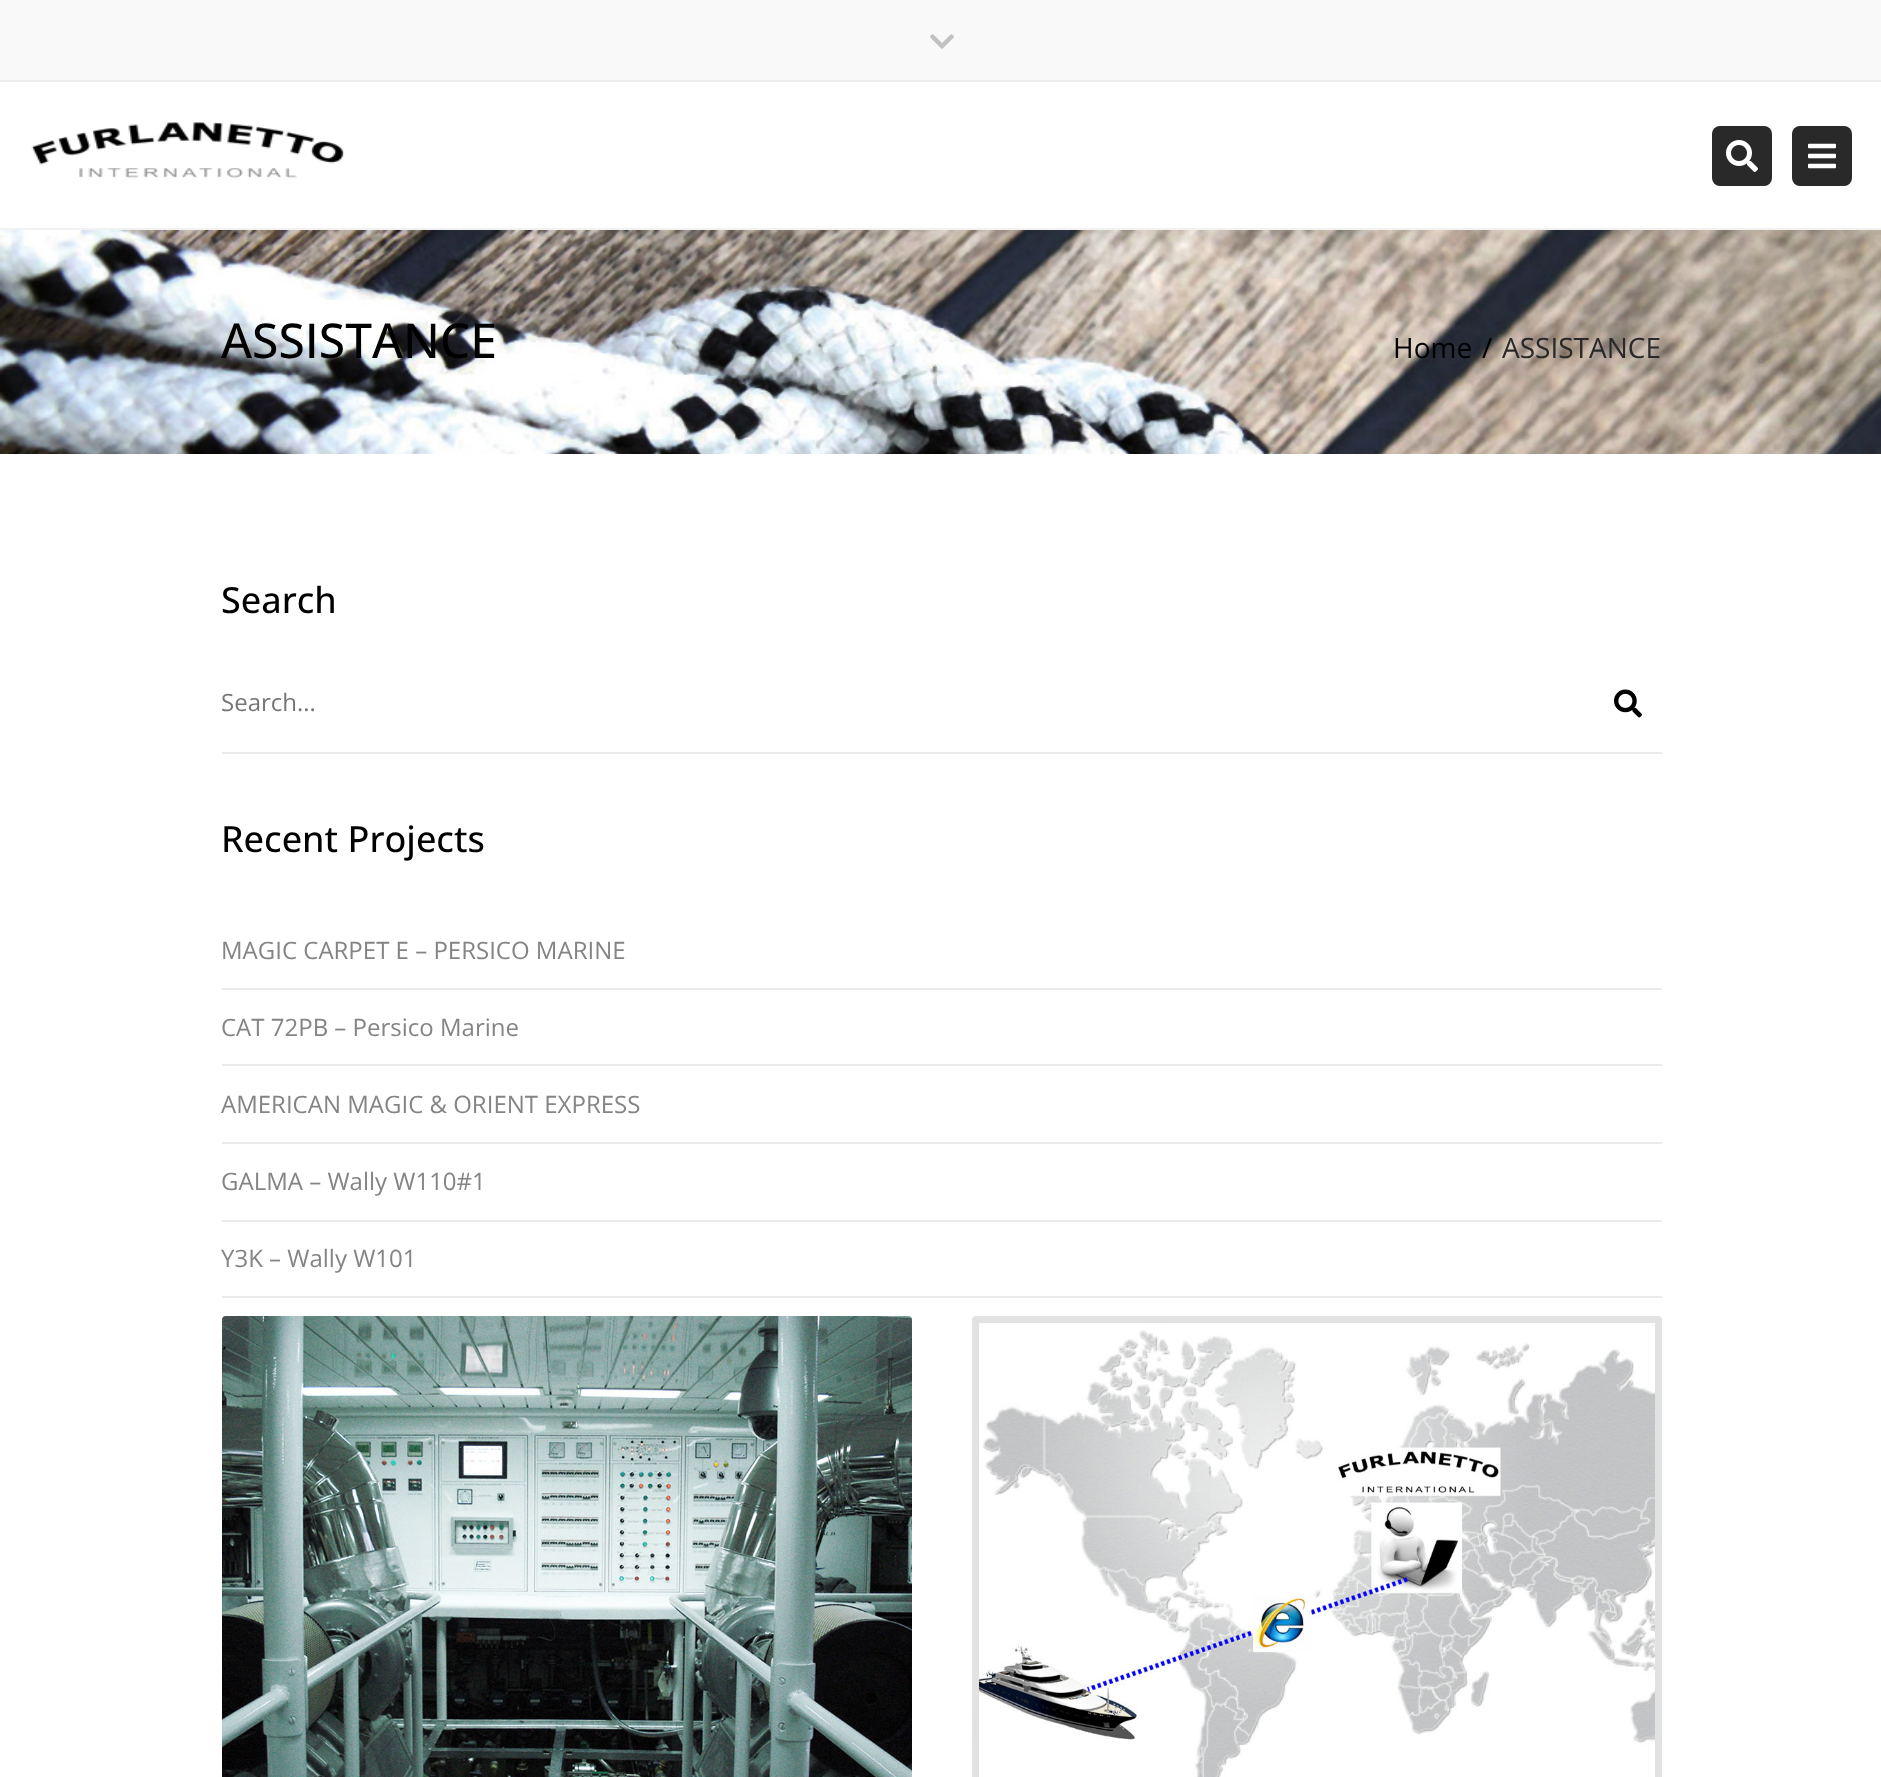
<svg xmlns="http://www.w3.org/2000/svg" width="1881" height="1777">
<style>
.a{font:500 48px Open Sans;fill:#000}
.b{font:28px Open Sans;fill:#000}
.c{font:28px Open Sans;fill:#292929}
.d{font:500 36px Open Sans;fill:#000}
.e{font:24px Open Sans;fill:#757575}
.f{font:24px Open Sans;fill:#848484}
</style>
<rect width="100%" height="100%" fill="#fff"/>
<path fill="#f9f9f9" d="M0 0h1881v80H0z"/>
<path fill="#ededed" d="M0 80h1881v2H0z"/>
<image href="1.png" x="930" y="34" width="24" height="15"/>
<path fill="#f2f2f2" d="M0 228h1881v2H0z"/>
<image href="2.png" x="31" y="122" width="314" height="57"/>
<rect fill="#292929" x="1712" y="126" width="60" height="60" rx="8"/>
<image href="3.png" x="1726" y="140" width="32" height="32"/>
<rect fill="#292929" x="1792" y="126" width="60" height="60" rx="8"/>
<image href="4.png" x="1808" y="143" width="28" height="26"/>
<image href="5.png" x="0" y="230" width="1881" height="224"/>
<path fill="#ebebeb" d="M222 752h1440v2H222z"/>
<image href="6.png" x="1614" y="689" width="28" height="29"/>
<path fill="#ebebeb" d="M222 988h1440v2H222z"/>
<path fill="#ebebeb" d="M222 1064h1440v2H222z"/>
<path fill="#ebebeb" d="M222 1142h1440v2H222z"/>
<path fill="#ebebeb" d="M222 1220h1440v2H222z"/>
<path fill="#ebebeb" d="M222 1296h1440v2H222z"/>
<image href="7.png" x="222" y="1316" width="690" height="461"/>
<image href="8.png" x="972" y="1316" width="690" height="461"/>
<text class="a" x="221" y="358">ASSISTANCE</text>
<text class="b" x="1393" y="358">Home</text>
<text class="b" x="1482" y="358">/</text>
<text class="c" x="1502" y="358">ASSISTANCE</text>
<text class="d" x="221" y="613">Search</text>
<text class="e" x="221" y="711">Search...</text>
<text class="d" x="221" y="852">Recent Projects</text>
<text class="f" x="221" y="959">MAGIC CARPET E – PERSICO MARINE</text>
<text class="f" x="221" y="1036">CAT 72PB – Persico Marine</text>
<text class="f" x="221" y="1113">AMERICAN MAGIC &amp; ORIENT EXPRESS</text>
<text class="f" x="221" y="1190">GALMA – Wally W110#1</text>
<text class="f" x="221" y="1267">Y3K – Wally W101</text>
</svg>
